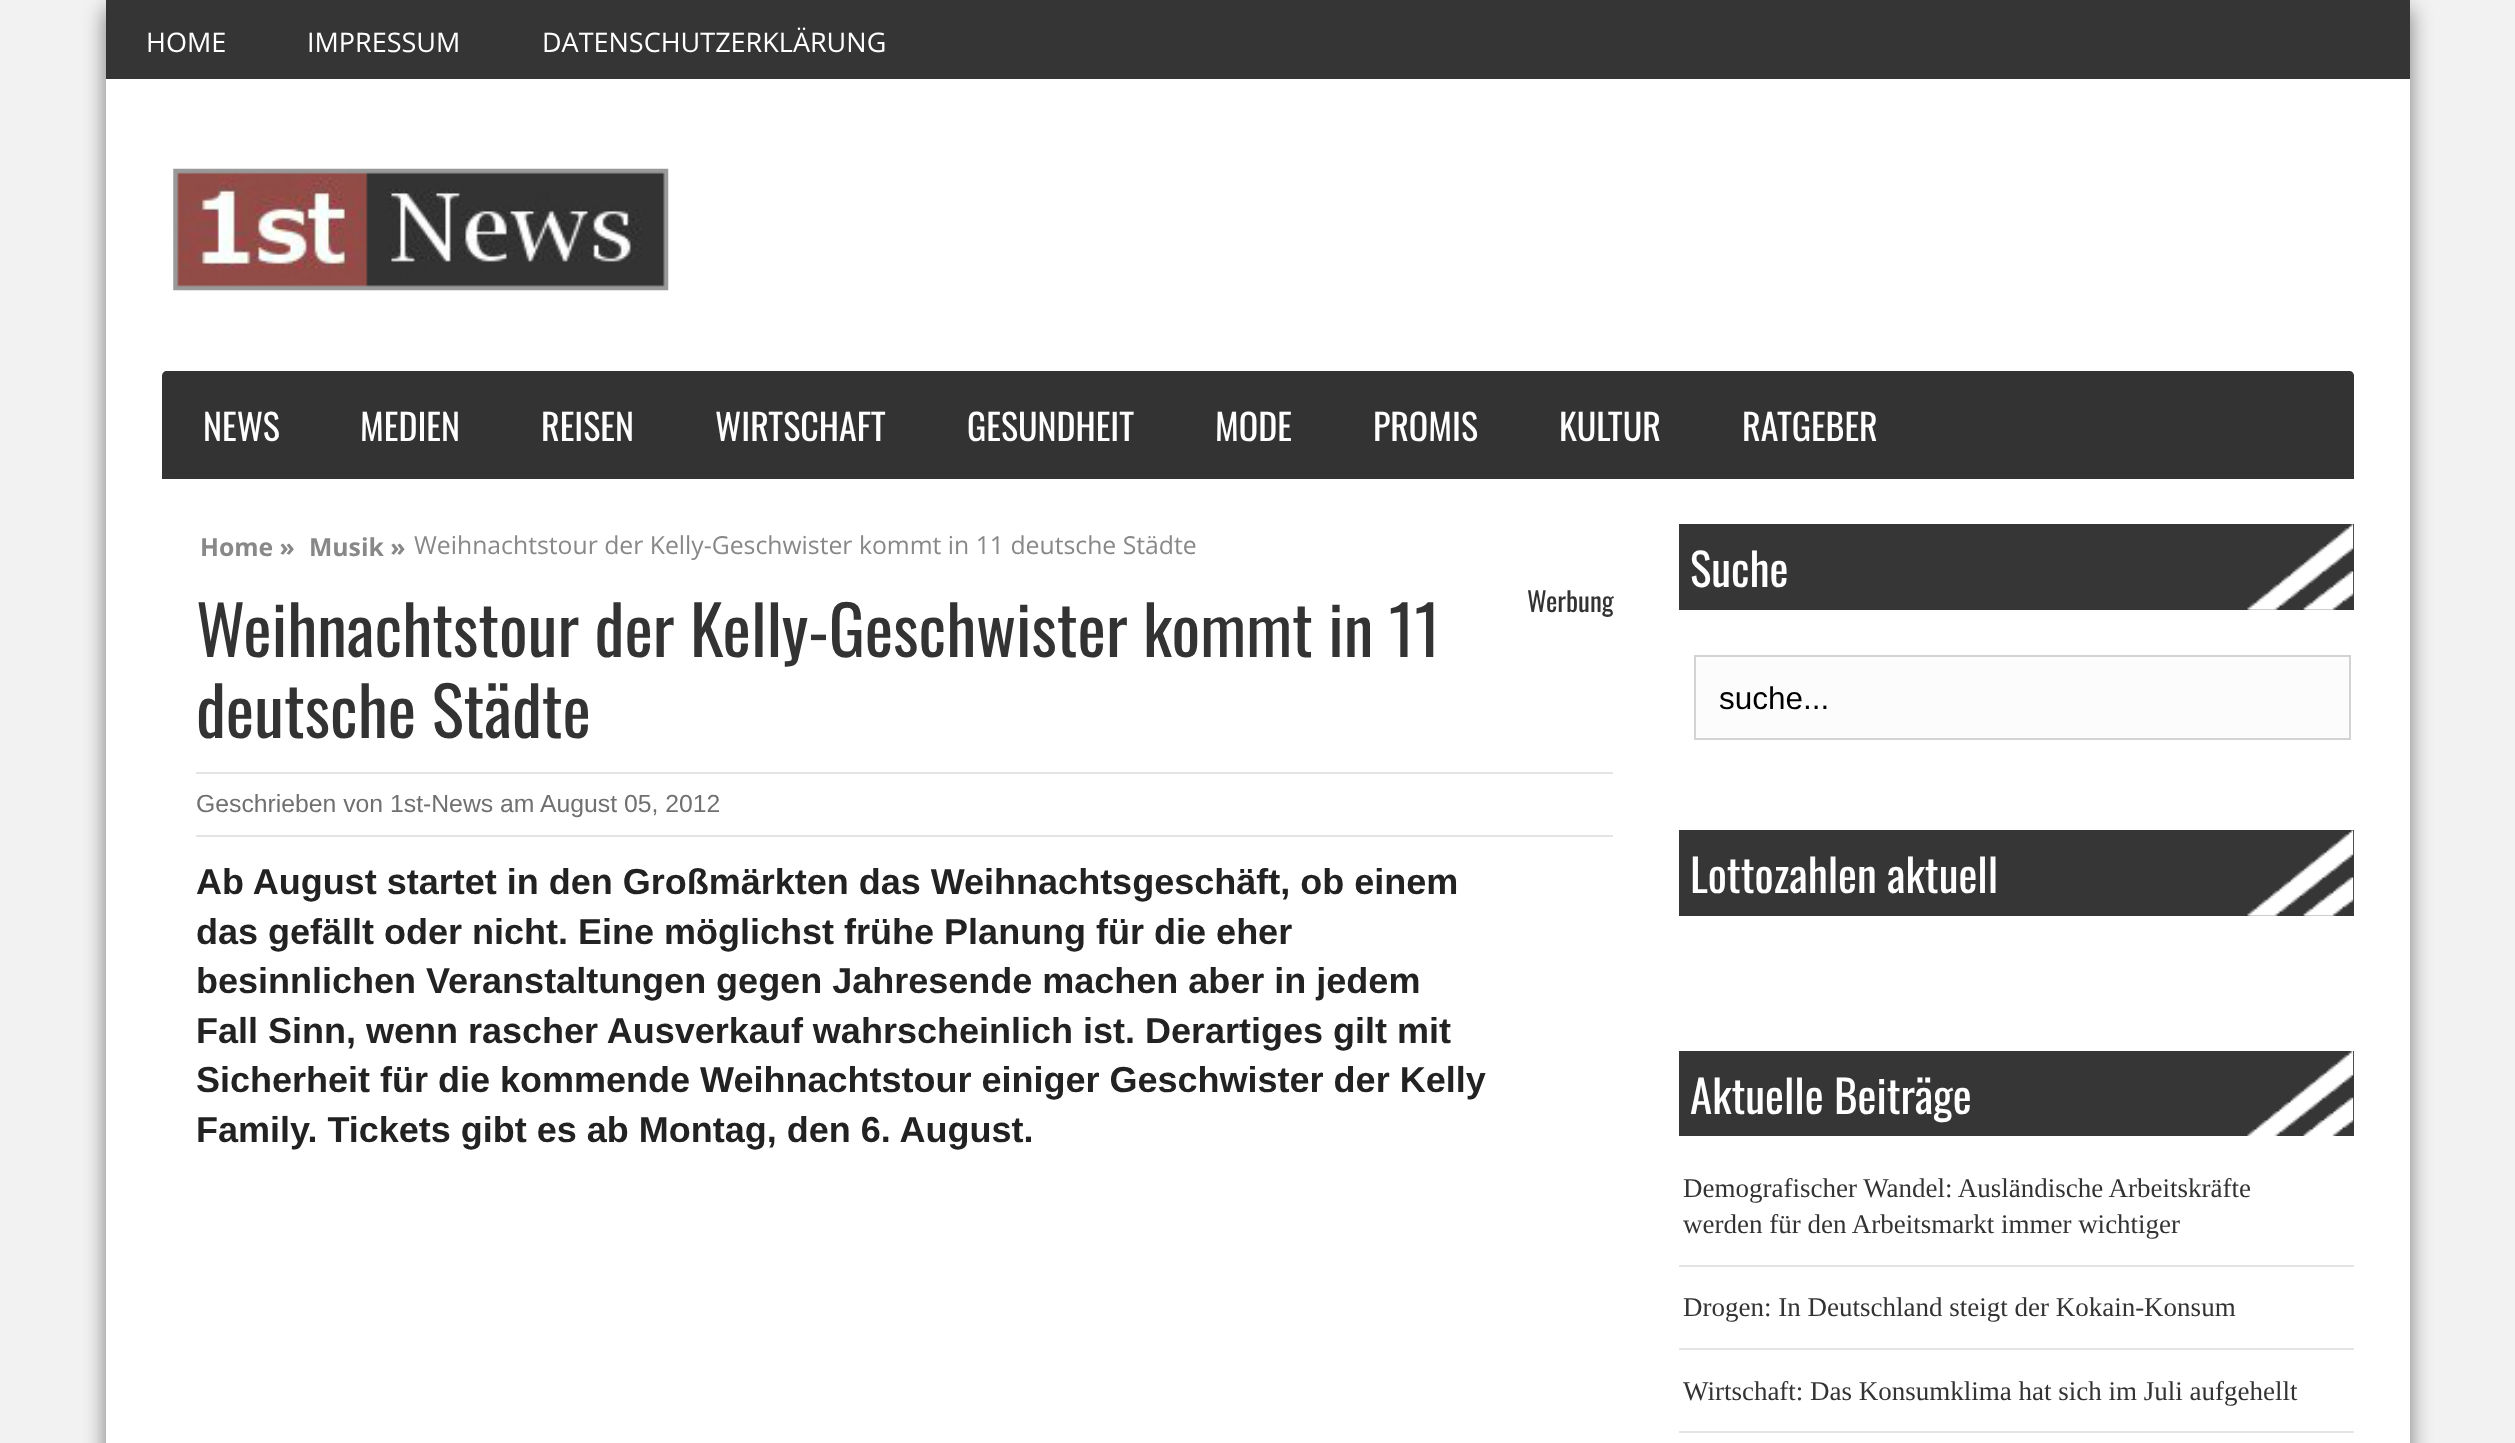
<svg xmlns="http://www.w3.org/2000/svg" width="2515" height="1443">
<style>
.a{font:27px Open Sans;fill:#fff}
.b{font:36px Oswald;fill:#fff}
.c{font:bold 24.75px Open Sans;fill:#888}
.d{font:24.75px Open Sans;fill:#888}
.e{font:67.5px Oswald;fill:#333}
.f{font:27px Oswald;fill:#333}
.g{font:24.75px Liberation Sans;fill:#707070}
.h{font:bold 36px Liberation Sans;fill:#222}
.i{font:45px Oswald;fill:#fff}
.j{font:31.5px Liberation Sans;fill:#000}
.k{font:27px Liberation Serif;fill:#333}
</style>
<rect width="100%" height="100%" fill="#f2f2f2"/>
<path fill="#00000080" filter="blur(11px)" d="M106 9h2304v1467H106z"/>
<path fill="#fff" d="M106 79h2304v1364H106z"/>
<path fill="#353535" d="M106 0h2304v79H106z"/>
<image href="1.png" x="173" y="168" width="496" height="123"/>
<path fill="#333" d="M167 371h2182c3 0 5 2 5 5v103h-2192v-103c0-3 2-5 5-5z"/>
<path fill="#e4e4e4" d="M196 772h1417v2H196z"/>
<path fill="#e4e4e4" d="M196 835h1417v2H196z"/>
<path fill="#363636" d="M1679 524h675v86H1679z"/>
<image href="2.png" x="2247" y="524" width="107" height="86"/>
<path fill="#fcfcfc" stroke="#d3d3d3" stroke-width="2" d="M1695 656h655v83H1695z"/>
<path fill="#363636" d="M1679 830h675v86H1679z"/>
<image href="3.png" x="2247" y="830" width="107" height="86"/>
<path fill="#363636" d="M1679 1051h675v85H1679z"/>
<image href="4.png" x="2247" y="1051" width="107" height="86"/>
<path fill="#e4e4e4" d="M1679 1265h675v2H1679z"/>
<path fill="#e4e4e4" d="M1679 1348h675v2H1679z"/>
<path fill="#e4e4e4" d="M1679 1431h675v2H1679z"/>
<text class="a" x="146" y="52">HOME</text>
<text class="a" x="307" y="52">IMPRESSUM</text>
<text class="a" x="542" y="52">DATENSCHUTZERKLÄRUNG</text>
<text class="b" x="203" y="441">NEWS</text>
<text class="b" x="360" y="441">MEDIEN</text>
<text class="b" x="541" y="441">REISEN</text>
<text class="b" x="715" y="441">WIRTSCHAFT</text>
<text class="b" x="967" y="441">GESUNDHEIT</text>
<text class="b" x="1215" y="441">MODE</text>
<text class="b" x="1373" y="441">PROMIS</text>
<text class="b" x="1559" y="441">KULTUR</text>
<text class="b" x="1742" y="441">RATGEBER</text>
<text class="c" x="200" y="556">Home »</text>
<text class="c" x="309" y="556">Musik »</text>
<text class="d" x="414" y="554">Weihnachtstour der Kelly-Geschwister kommt in 11 deutsche Städte</text>
<text class="e" x="196" y="657">Weihnachtstour der Kelly-Geschwister kommt in 11</text>
<text class="f" x="1527" y="612">Werbung</text>
<text class="e" x="196" y="738">deutsche Städte</text>
<text class="g" x="196" y="812">Geschrieben von 1st-News am</text>
<text class="g" x="540" y="812">August 05, 2012</text>
<text class="h" x="196" y="894">Ab August startet in den Großmärkten das Weihnachtsgeschäft, ob einem</text>
<text class="h" x="196" y="944">das gefällt oder nicht. Eine möglichst frühe Planung für die eher</text>
<text class="h" x="196" y="993">besinnlichen Veranstaltungen gegen Jahresende machen aber in jedem</text>
<text class="h" x="196" y="1043">Fall Sinn, wenn rascher Ausverkauf wahrscheinlich ist. Derartiges gilt mit</text>
<text class="h" x="196" y="1092">Sicherheit für die kommende Weihnachtstour einiger Geschwister der Kelly</text>
<text class="h" x="196" y="1142">Family. Tickets gibt es ab Montag, den 6. August.</text>
<text class="i" x="1690" y="587">Suche</text>
<text class="j" x="1719" y="709">suche...</text>
<text class="i" x="1690" y="893">Lottozahlen aktuell</text>
<text class="i" x="1690" y="1114">Aktuelle Beiträge</text>
<text class="k" x="1683" y="1197">Demografischer Wandel: Ausländische Arbeitskräfte</text>
<text class="k" x="1683" y="1233">werden für den Arbeitsmarkt immer wichtiger</text>
<text class="k" x="1683" y="1316">Drogen: In Deutschland steigt der Kokain-Konsum</text>
<text class="k" x="1683" y="1400">Wirtschaft: Das Konsumklima hat sich im Juli aufgehellt</text>
</svg>
